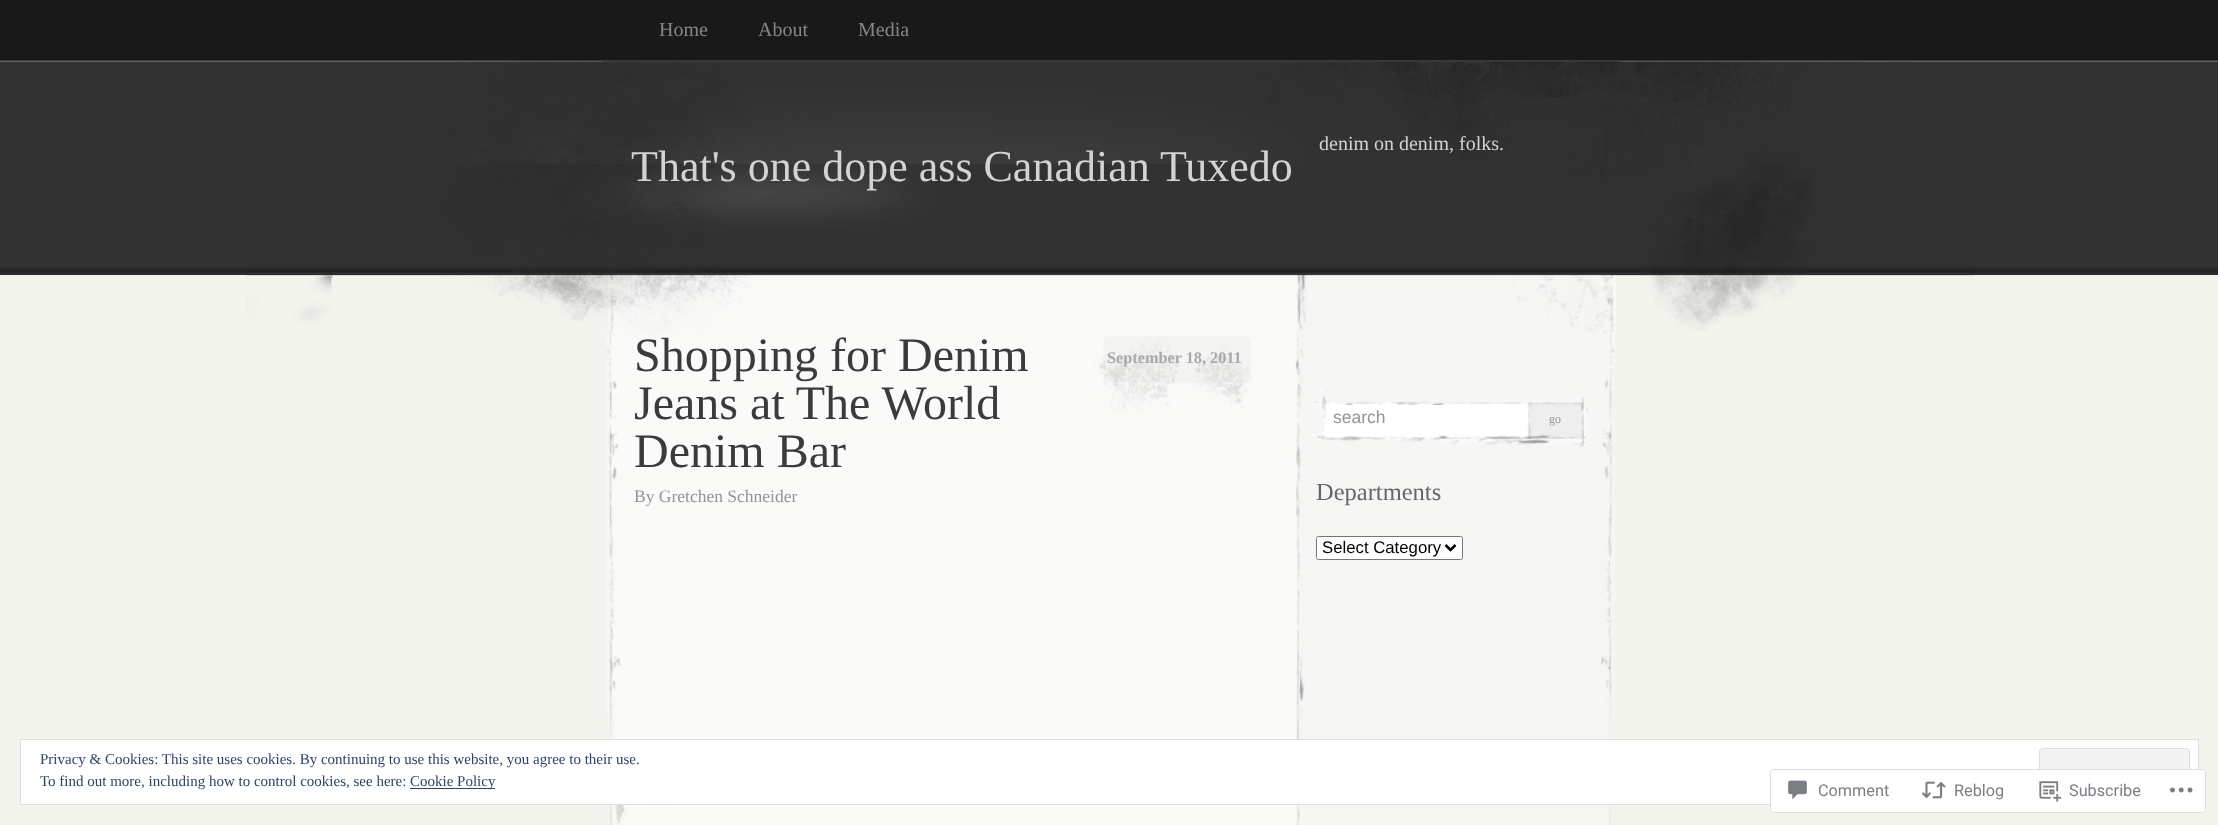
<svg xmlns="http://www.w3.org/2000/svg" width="2218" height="825">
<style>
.a{font:20px Liberation Serif;fill:#868686}
.b{font:20px Liberation Serif;fill:#d3d3d3}
.c{font:44px Liberation Serif;fill:#d3d3d3}
.d{font:48px Liberation Serif;fill:#3b3b3b}
.e{font:bold 16.25px Liberation Serif;fill:#a9a9a9}
.f{font:17.5px Liberation Serif;fill:#949494}
.g{font:17.5px Liberation Sans;fill:#949494}
.h{font:12px Liberation Serif;fill:#949494}
.i{font:24.5px Liberation Serif;fill:#676767}
.j{font:16.75px Liberation Sans;fill:#000}
.k{font:15px Liberation Serif;fill:#2e4467}
.l{font:16.25px Roboto;fill:#7b7f85}
</style>
<rect width="100%" height="100%" fill="#f3f4ee"/>
<path fill="#191919" d="M0 0h2218v60H0z"/>
<path fill="#373737" d="M0 60h2218v1H0z"/>
<image href="1.png" x="0" y="61" width="2218" height="214"/>
<image href="2.png" x="246" y="61" width="1728" height="270"/>
<image href="3.png" x="606" y="331" width="1009" height="494"/>
<image href="4.png" x="1093" y="336" width="161" height="78"/>
<image href="5.png" x="1313" y="388" width="275" height="59"/>
<path fill="#fff" d="M1345 405h171v2H1345z"/>
<rect fill="#fff" stroke="#767676" x="1316.5" y="536.5" width="146" height="23" rx="2"/>
<path fill="none" stroke="#000" stroke-width="2.5" d="M1445.5 545l5 5l5-5"/>
<path fill="#fff" stroke="#dedede" d="M20.5 739.5h2178v65H20.5z"/>
<rect fill="#f3f3f3" stroke="#dedede" x="2039.5" y="748.5" width="150" height="47" rx="3.5"/>
<path fill="#2e4467" d="M410 788h85v1H410z"/>
<rect fill="#fffffffa" x="1770" y="769" width="436" height="44" rx="4"/>
<rect fill="none" stroke="#dcdcdefa" x="1770.5" y="769.5" width="435" height="43" rx="3.5"/>
<image href="6.png" x="1788" y="780" width="19" height="20"/>
<image href="7.png" x="1921" y="781" width="25" height="18"/>
<image href="8.png" x="2039" y="781" width="22" height="21"/>
<image href="9.png" x="2170" y="787" width="23" height="6"/>
<text class="a" x="659" y="36">Home</text>
<text class="a" x="758" y="36">About</text>
<text class="a" x="858" y="36">Media</text>
<text class="b" x="1319" y="150">denim on denim, folks.</text>
<text class="c" x="631" y="181">That's one dope ass Canadian Tuxedo</text>
<text class="d" x="634" y="371">Shopping for Denim</text>
<text class="d" x="634" y="419">Jeans at The World</text>
<text class="d" x="634" y="467">Denim Bar</text>
<text class="e" x="1107" y="363">September 18, 2011</text>
<text class="f" x="634" y="502">By Gretchen Schneider</text>
<text class="g" x="1333" y="423">search</text>
<text class="h" x="1549" y="423">go</text>
<text class="i" x="1316" y="500">Departments</text>
<text class="j" x="1322" y="553">Select Category</text>
<text class="k" x="40" y="764">Privacy &amp; Cookies: This site uses cookies. By continuing to use this website, you agree to their use.</text>
<text class="k" x="40" y="786">To find out more, including how to control cookies, see here:</text>
<text class="k" x="410" y="786">Cookie Policy</text>
<text class="l" x="1818" y="796">Comment</text>
<text class="l" x="1954" y="796">Reblog</text>
<text class="l" x="2069" y="796">Subscribe</text>
</svg>
